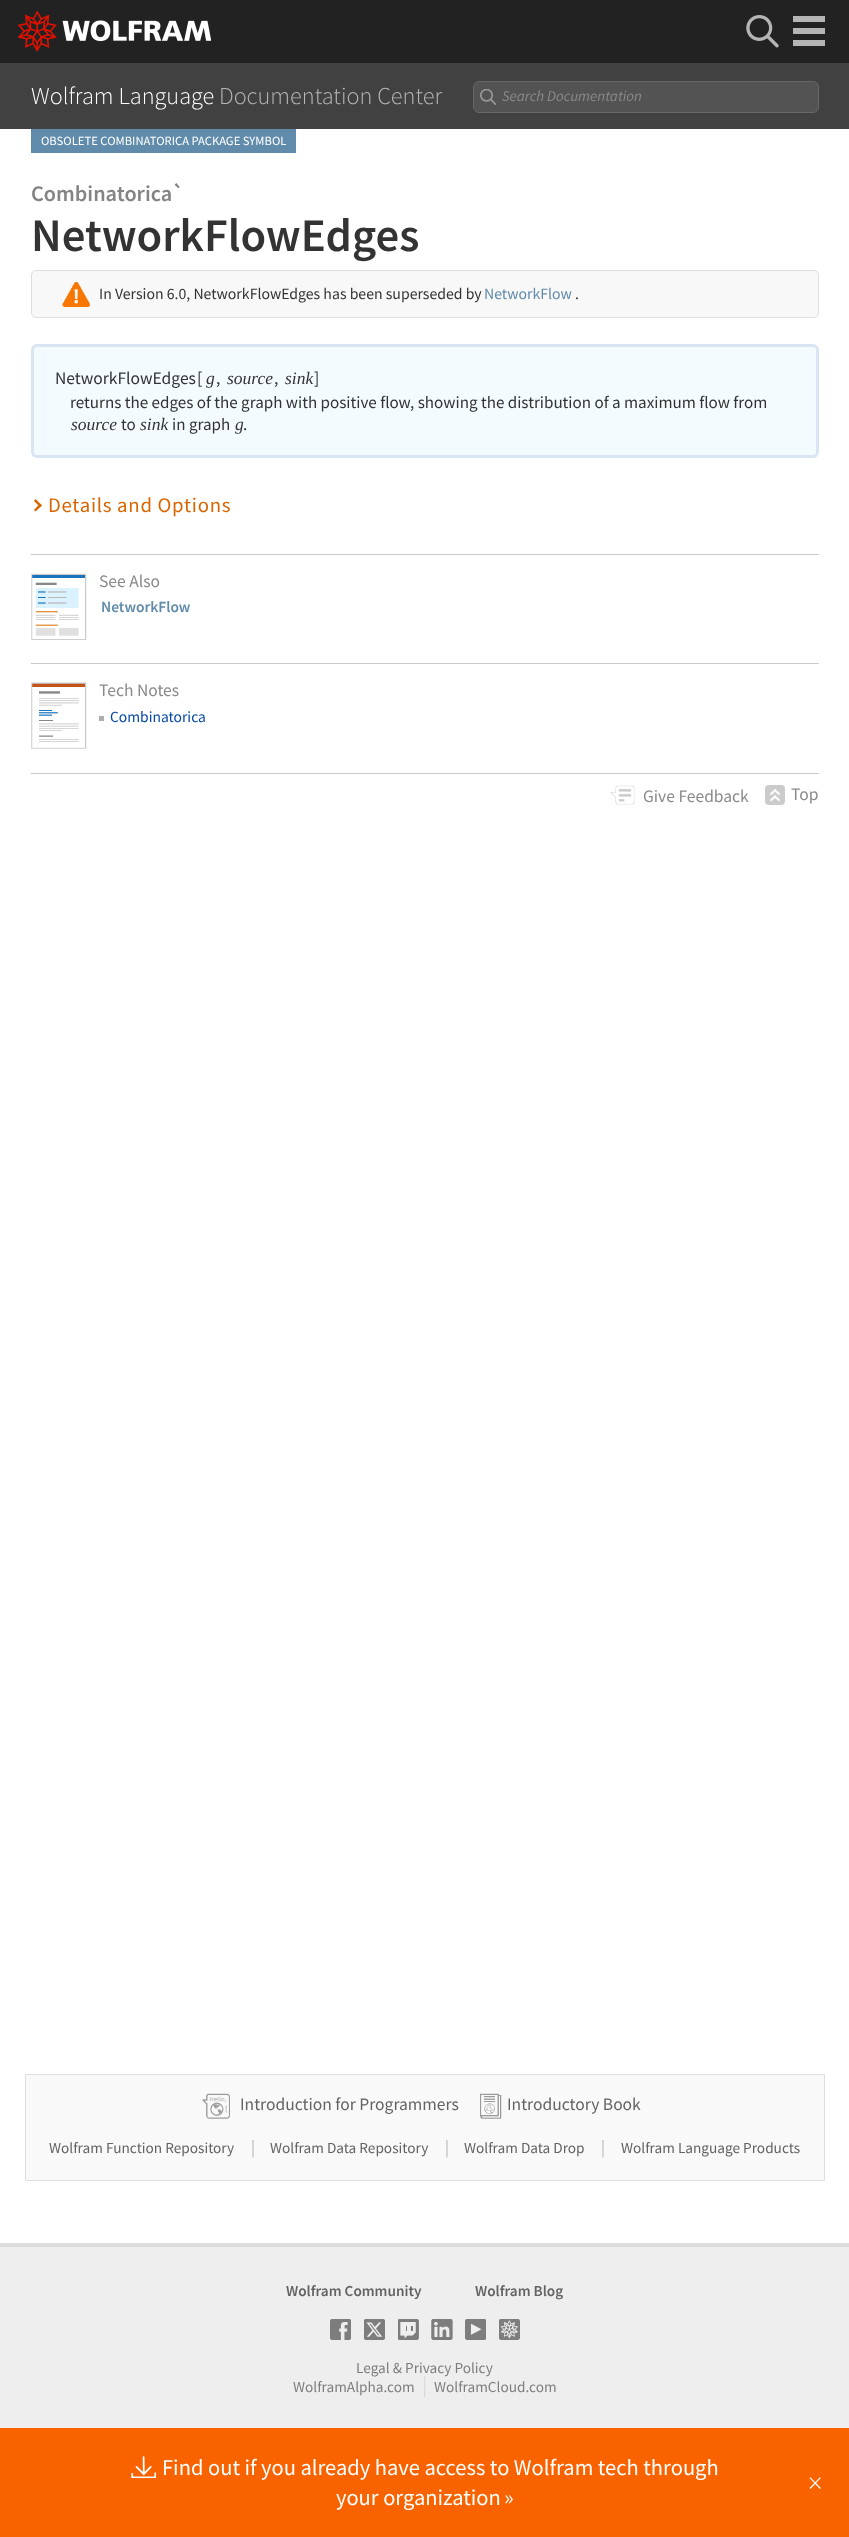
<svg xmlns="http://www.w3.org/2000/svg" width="849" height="2537">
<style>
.a{font:300 24.25px Source Sans Pro;fill:#fff}
.b{font:300 24.25px Source Sans Pro;fill:#b7b7b7}
.c{font:italic 15px Source Sans Pro;fill:#8a8a8a}
.d{font:12.6px Source Sans Pro;fill:#fff}
.e{font:600 22.25px Source Sans Pro;fill:#848484}
.f{font:600 46.75px Source Sans Pro;fill:#333}
.g{font:15.75px Source Sans Pro;fill:#333}
.h{font:15.75px Source Sans Pro;fill:#608bab}
.i{font:17.5px Source Sans Pro;fill:#333}
.j{font:italic 17.5px Liberation Serif;fill:#333}
.k{font:17px Source Sans Pro;fill:#333}
.l{font:20.75px Source Sans Pro;letter-spacing:0.75px;fill:#d96500}
.m{font:17.5px Source Sans Pro;fill:#8a8a8a}
.n{font:600 15.5px Source Sans Pro;fill:#608bab}
.o{font:15.5px Source Sans Pro;fill:#0549a6}
.p{font:17.5px Source Sans Pro;fill:#636363}
.q{font:15.25px Source Sans Pro;fill:#636363}
.r{font:300 17.5px Source Sans Pro;fill:#919191}
.s{font:600 15.25px Source Sans Pro;fill:#636363}
.t{font:15.25px Source Sans Pro;fill:#7e7e7e}
.u{font:21px Source Sans Pro;fill:#dadada}
.v{font:22.5px Source Sans Pro;fill:#fff}
.w{font:300 30px Source Sans Pro;fill:#fff}
</style>
<rect width="100%" height="100%" fill="#fff"/>
<path fill="#222" d="M0 0h849v63H0z"/>
<image href="1.png" x="18" y="10" width="193" height="42"/>
<image href="2.png" x="746" y="15" width="33" height="33"/>
<path fill="#b5b5b5" d="M793 16h32v6H793z"/>
<path fill="#b5b5b5" d="M793 28h32v6H793z"/>
<path fill="#b5b5b5" d="M793 40h32v6H793z"/>
<path fill="#414141" d="M0 63h849v66H0z"/>
<rect fill="#535353" stroke="#676767" x="473.5" y="81.5" width="345" height="31" rx="5.5"/>
<image href="3.png" x="480" y="89" width="16" height="16"/>
<path fill="#608bab" d="M31 129h265v24H31z"/>
<rect fill="#f8f8f8" stroke="#dedede" x="31.5" y="270.5" width="787" height="47" rx="4.5"/>
<image href="4.png" x="62" y="282" width="28" height="25"/>
<rect fill="#f3fbff" stroke="#d9e5f3" stroke-width="3" x="32.5" y="345.5" width="785" height="111" rx="4.5"/>
<path fill="#d96500" d="M34 501l1.5-2l6.5 6.5l-2 1.5z"/>
<path fill="#d96500" d="M34 510l6-6.5l2 2l-6.5 6z"/>
<image href="5.png" x="31" y="573" width="56" height="67"/>
<path fill="#cacaca" d="M31 554h788v1H31z"/>
<image href="6.png" x="31" y="682" width="56" height="67"/>
<path fill="#cacaca" d="M31 663h788v1H31z"/>
<path fill="#adadad" d="M99 716h5v5H99z"/>
<path fill="#cacaca" d="M31 773h788v1H31z"/>
<image href="7.png" x="610" y="785" width="25" height="20"/>
<rect fill="#cbcbcb" x="765" y="785" width="20" height="20" rx="4"/>
<image href="8.png" x="770" y="788" width="10" height="14"/>
<path fill="#f9f9f9" stroke="#dedede" d="M25.5 2074.5h799v106H25.5z"/>
<image href="9.png" x="202" y="2093" width="28" height="26"/>
<image href="10.png" x="480" y="2093" width="22" height="26"/>
<path fill="#eee" d="M0 2247h849v181H0z"/>
<path fill="#ddd" d="M0 2243h849v4H0z"/>
<image href="11.png" x="330" y="2319" width="21" height="21"/>
<image href="12.png" x="364" y="2319" width="21" height="21"/>
<image href="13.png" x="398" y="2319" width="21" height="21"/>
<image href="14.png" x="431" y="2319" width="22" height="21"/>
<image href="15.png" x="465" y="2319" width="21" height="21"/>
<image href="16.png" x="499" y="2319" width="21" height="21"/>
<path fill="#f86300" d="M0 2428h849v109H0z"/>
<image href="17.png" x="131" y="2456" width="25" height="22"/>
<text class="a" x="31" y="104">Wolfram Language</text>
<text class="b" x="219" y="104">Documentation Center</text>
<text class="c" x="502" y="101">Search Documentation</text>
<text class="d" x="41" y="145">OBSOLETE COMBINATORICA PACKAGE SYMBOL</text>
<text class="e" x="31" y="201">Combinatorica`</text>
<text class="f" x="31" y="251">NetworkFlowEdges</text>
<text class="g" x="99" y="299">In Version 6.0, NetworkFlowEdges has been superseded by</text>
<text class="h" x="484" y="299">NetworkFlow</text>
<text class="g" x="575" y="299">.</text>
<text class="i" x="55" y="384">NetworkFlowEdges</text>
<text class="i" x="197" y="384">[</text>
<text class="j" x="206" y="384">g</text>
<text class="i" x="216" y="384">,</text>
<text class="j" x="227" y="384">source</text>
<text class="i" x="274" y="384">,</text>
<text class="j" x="285" y="384">sink</text>
<text class="i" x="314" y="384">]</text>
<text class="k" x="70" y="408">returns the edges of the graph with positive flow, showing the distribution of a maximum flow from</text>
<text class="j" x="71" y="430">source</text>
<text class="k" x="121" y="430">to</text>
<text class="j" x="140" y="430">sink</text>
<text class="k" x="172" y="430">in graph</text>
<text class="j" x="235" y="430">g</text>
<text class="k" x="243" y="430">.</text>
<text class="l" x="48" y="512">Details and Options</text>
<text class="m" x="99" y="587">See Also</text>
<text class="n" x="101" y="612">NetworkFlow</text>
<text class="m" x="99" y="696">Tech Notes</text>
<text class="o" x="110" y="722">Combinatorica</text>
<text class="m" x="643" y="802">Give Feedback</text>
<text class="m" x="791" y="800">Top</text>
<text class="p" x="240" y="2110">Introduction for Programmers</text>
<text class="p" x="507" y="2110">Introductory Book</text>
<text class="q" x="49" y="2153">Wolfram Function Repository</text>
<text class="r" x="251" y="2153">|</text>
<text class="q" x="270" y="2153">Wolfram Data Repository</text>
<text class="r" x="445" y="2153">|</text>
<text class="q" x="464" y="2153">Wolfram Data Drop</text>
<text class="r" x="601" y="2153">|</text>
<text class="q" x="621" y="2153">Wolfram Language Products</text>
<text class="s" x="286" y="2296">Wolfram Community</text>
<text class="s" x="475" y="2296">Wolfram Blog</text>
<text class="t" x="356" y="2373">Legal &amp; Privacy Policy</text>
<text class="t" x="293" y="2392">WolframAlpha.com</text>
<text class="u" x="422" y="2392">|</text>
<text class="t" x="434" y="2392">WolframCloud.com</text>
<text class="v" x="162" y="2475">Find out if you already have access to Wolfram tech through</text>
<text class="v" x="336" y="2505">your organization</text>
<text class="v" x="504" y="2505">»</text>
<text class="w" x="808" y="2493">×</text>
</svg>
